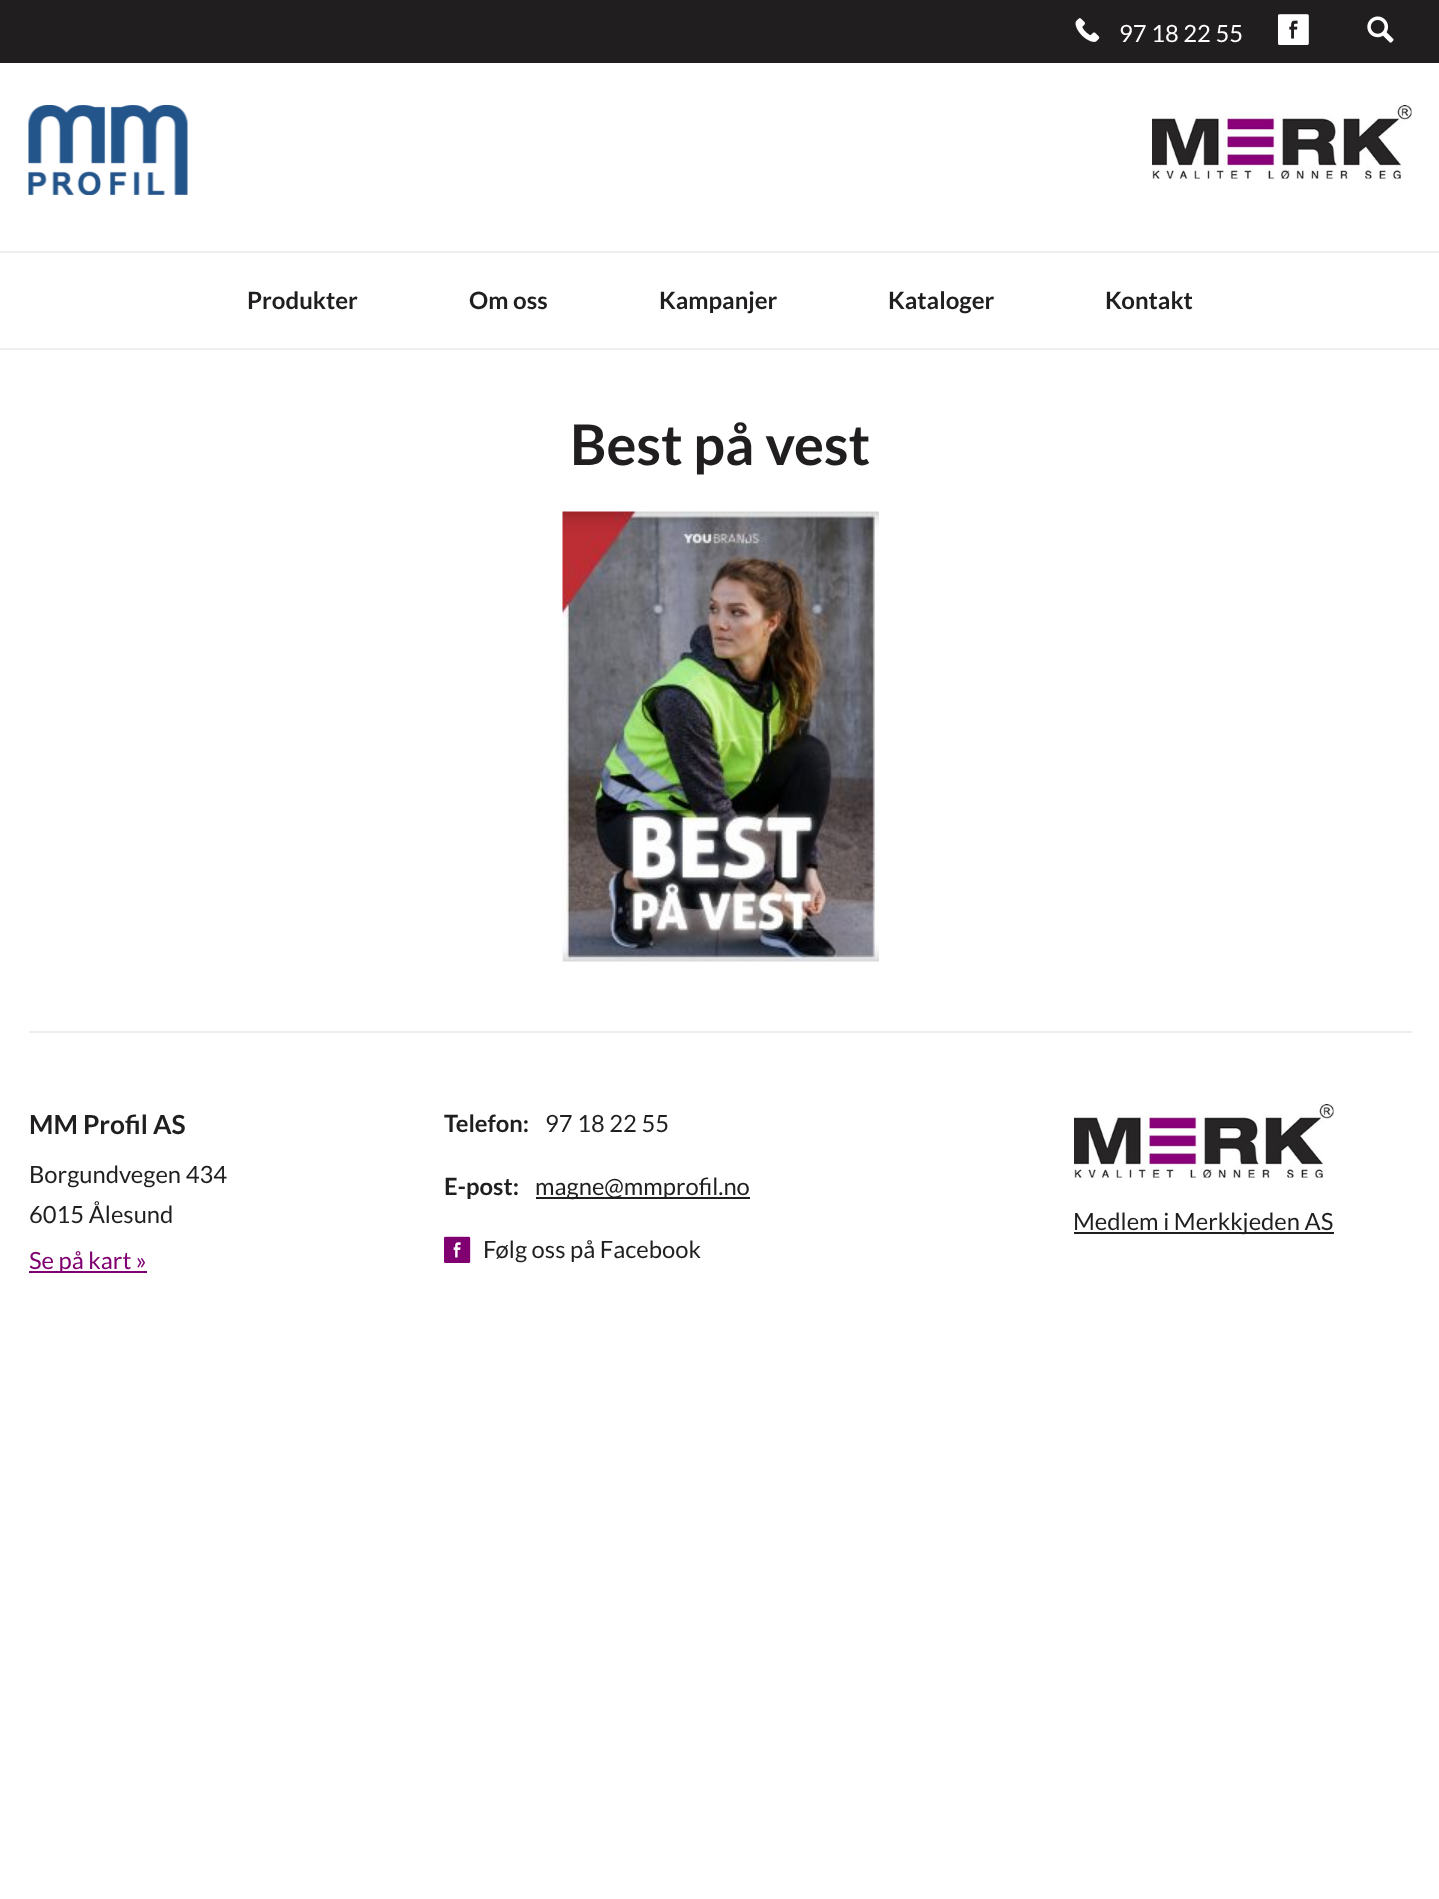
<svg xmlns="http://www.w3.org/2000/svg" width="1439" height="1899">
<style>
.a{font:23.75px Lato;fill:#fff}
.b{font:bold 24px Lato;fill:#201e1f}
.c{font:bold 56px Lato;fill:#201e1f}
.d{font:bold 26.25px Lato;fill:#201e1f}
.e{font:23.75px Lato;fill:#201e1f}
.f{font:23.75px Lato;fill:#800071}
.g{font:bold 23.75px Lato;fill:#201e1f}
</style>
<rect width="100%" height="100%" fill="#fff"/>
<path fill="#201e1f" d="M0 0h1439v63H0z"/>
<image href="1.png" x="1075" y="18" width="25" height="24"/>
<image href="2.png" x="1278" y="14" width="31" height="31"/>
<image href="3.png" x="1367" y="16" width="27" height="27"/>
<image href="4.png" x="28" y="105" width="160" height="90"/>
<image href="5.png" x="1152" y="105" width="260" height="74"/>
<path fill="#eee" d="M0 251h1439v2H0z"/>
<path fill="#eee" d="M0 348h1439v2H0z"/>
<image href="6.png" x="562" y="511" width="317" height="451"/>
<path fill="#eee" d="M29 1031h1383v2H29z"/>
<path fill="#800071" d="M29 1271h118v2H29z"/>
<path fill="#201e1f" d="M536 1197h214v2H536z"/>
<image href="7.png" x="444" y="1236" width="27" height="27"/>
<image href="8.png" x="1074" y="1104" width="260" height="74"/>
<path fill="#201e1f" d="M1074 1232h260v2H1074z"/>
<text class="a" x="1119" y="42">97 18 22 55</text>
<text class="b" x="247" y="309">Produkter</text>
<text class="b" x="469" y="309">Om oss</text>
<text class="b" x="659" y="309">Kampanjer</text>
<text class="b" x="888" y="309">Kataloger</text>
<text class="b" x="1105" y="309">Kontakt</text>
<text class="c" x="570" y="465">Best på vest</text>
<text class="d" x="29" y="1134">MM Profil AS</text>
<text class="e" x="29" y="1183">Borgundvegen 434</text>
<text class="e" x="29" y="1223">6015 Ålesund</text>
<text class="f" x="29" y="1269">Se på kart »</text>
<text class="g" x="444" y="1132">Telefon:</text>
<text class="e" x="545" y="1132">97 18 22 55</text>
<text class="g" x="444" y="1195">E-post:</text>
<text class="e" x="535" y="1195">magne@mmprofil.no</text>
<text class="e" x="483" y="1258">Følg oss på Facebook</text>
<text class="e" x="1073" y="1230">Medlem i Merkkjeden AS</text>
</svg>
